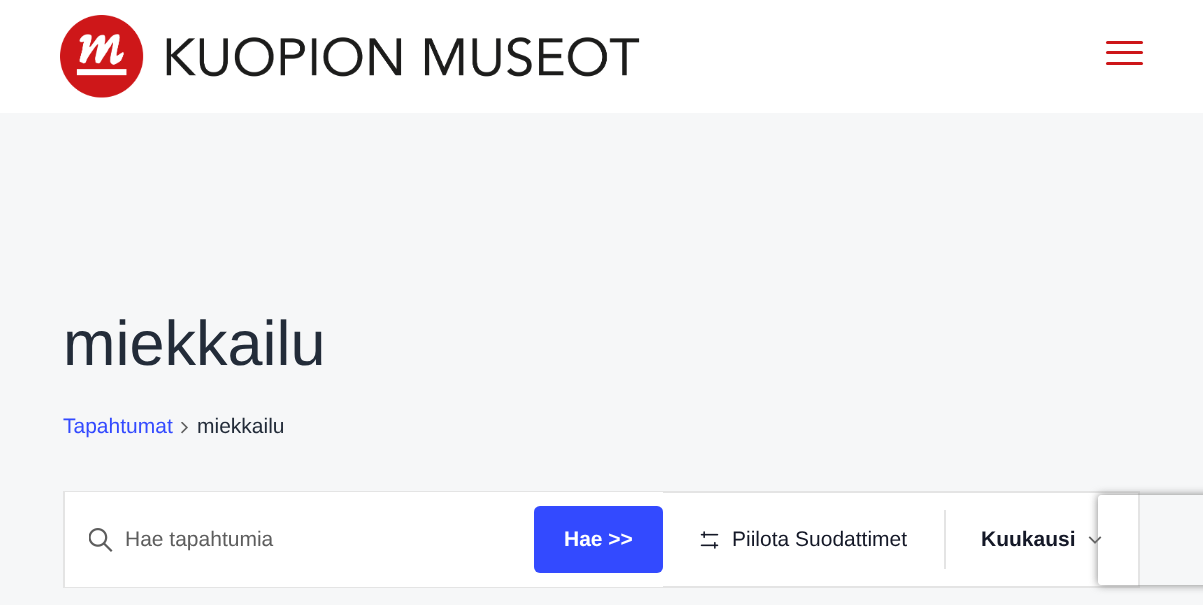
<svg xmlns="http://www.w3.org/2000/svg" width="1203" height="605">
<style>
.a{font:63px Liberation Sans;fill:#232c39}
.b{font:21px Liberation Sans;fill:#334aff}
.c{font:21px Liberation Sans;fill:#232c39}
.d{font:21px Liberation Sans;fill:#5d5d5d}
.e{font:bold 21px Liberation Sans;fill:#fff}
.f{font:21px Liberation Sans;fill:#141827}
.g{font:bold 21px Liberation Sans;fill:#141827}
</style>
<defs>
<clipPath id="clip1"><path d="M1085 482h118v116h-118zm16 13h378c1.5 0 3 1.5 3 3v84c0 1.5-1.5 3-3 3h-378c-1.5 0-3-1.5-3-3v-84c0-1.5 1.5-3 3-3z" clip-rule="evenodd"/></clipPath>
</defs>
<rect width="100%" height="100%" fill="#f6f7f8"/>
<path fill="#fff" d="M0 0h1203v113H0z"/>
<image href="1.png" x="60" y="15" width="580" height="83"/>
<rect fill="#cd1618" x="1106" y="51" width="37" height="3" rx="1.5"/>
<rect fill="#cd1618" x="1106" y="41" width="37" height="3" rx="1.5"/>
<rect fill="#cd1618" x="1106" y="62" width="37" height="3" rx="1.5"/>
<image href="2.png" x="181" y="422" width="7" height="12"/>
<path fill="#fff" d="M663 493h475v93H663z"/>
<path fill="none" stroke="#e4e4e4" stroke-width="2" d="M64 492h1075v95H64z"/>
<path fill="#fff" d="M65 492h598v95H65z"/>
<image href="3.png" x="89" y="528" width="24" height="24"/>
<rect fill="#334aff" x="534" y="506" width="129" height="67" rx="6"/>
<path fill="#e4e4e4" d="M944 510h2v59H944z"/>
<image href="4.png" x="700" y="531" width="19" height="18"/>
<image href="5.png" x="1088" y="536" width="14" height="8"/>
<g clip-path="url(#clip1)">
<rect fill="#808080" filter="blur(4px)" x="1098" y="495" width="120" height="90" rx="3"/>
</g>
<text class="a" x="63" y="365">miekkailu</text>
<text class="b" x="63" y="433">Tapahtumat</text>
<text class="c" x="197" y="433">miekkailu</text>
<text class="d" x="125" y="546">Hae tapahtumia</text>
<text class="e" x="564" y="546">Hae &gt;&gt;</text>
<text class="f" x="732" y="546">Piilota Suodattimet</text>
<text class="g" x="981" y="546">Kuukausi</text>
</svg>
